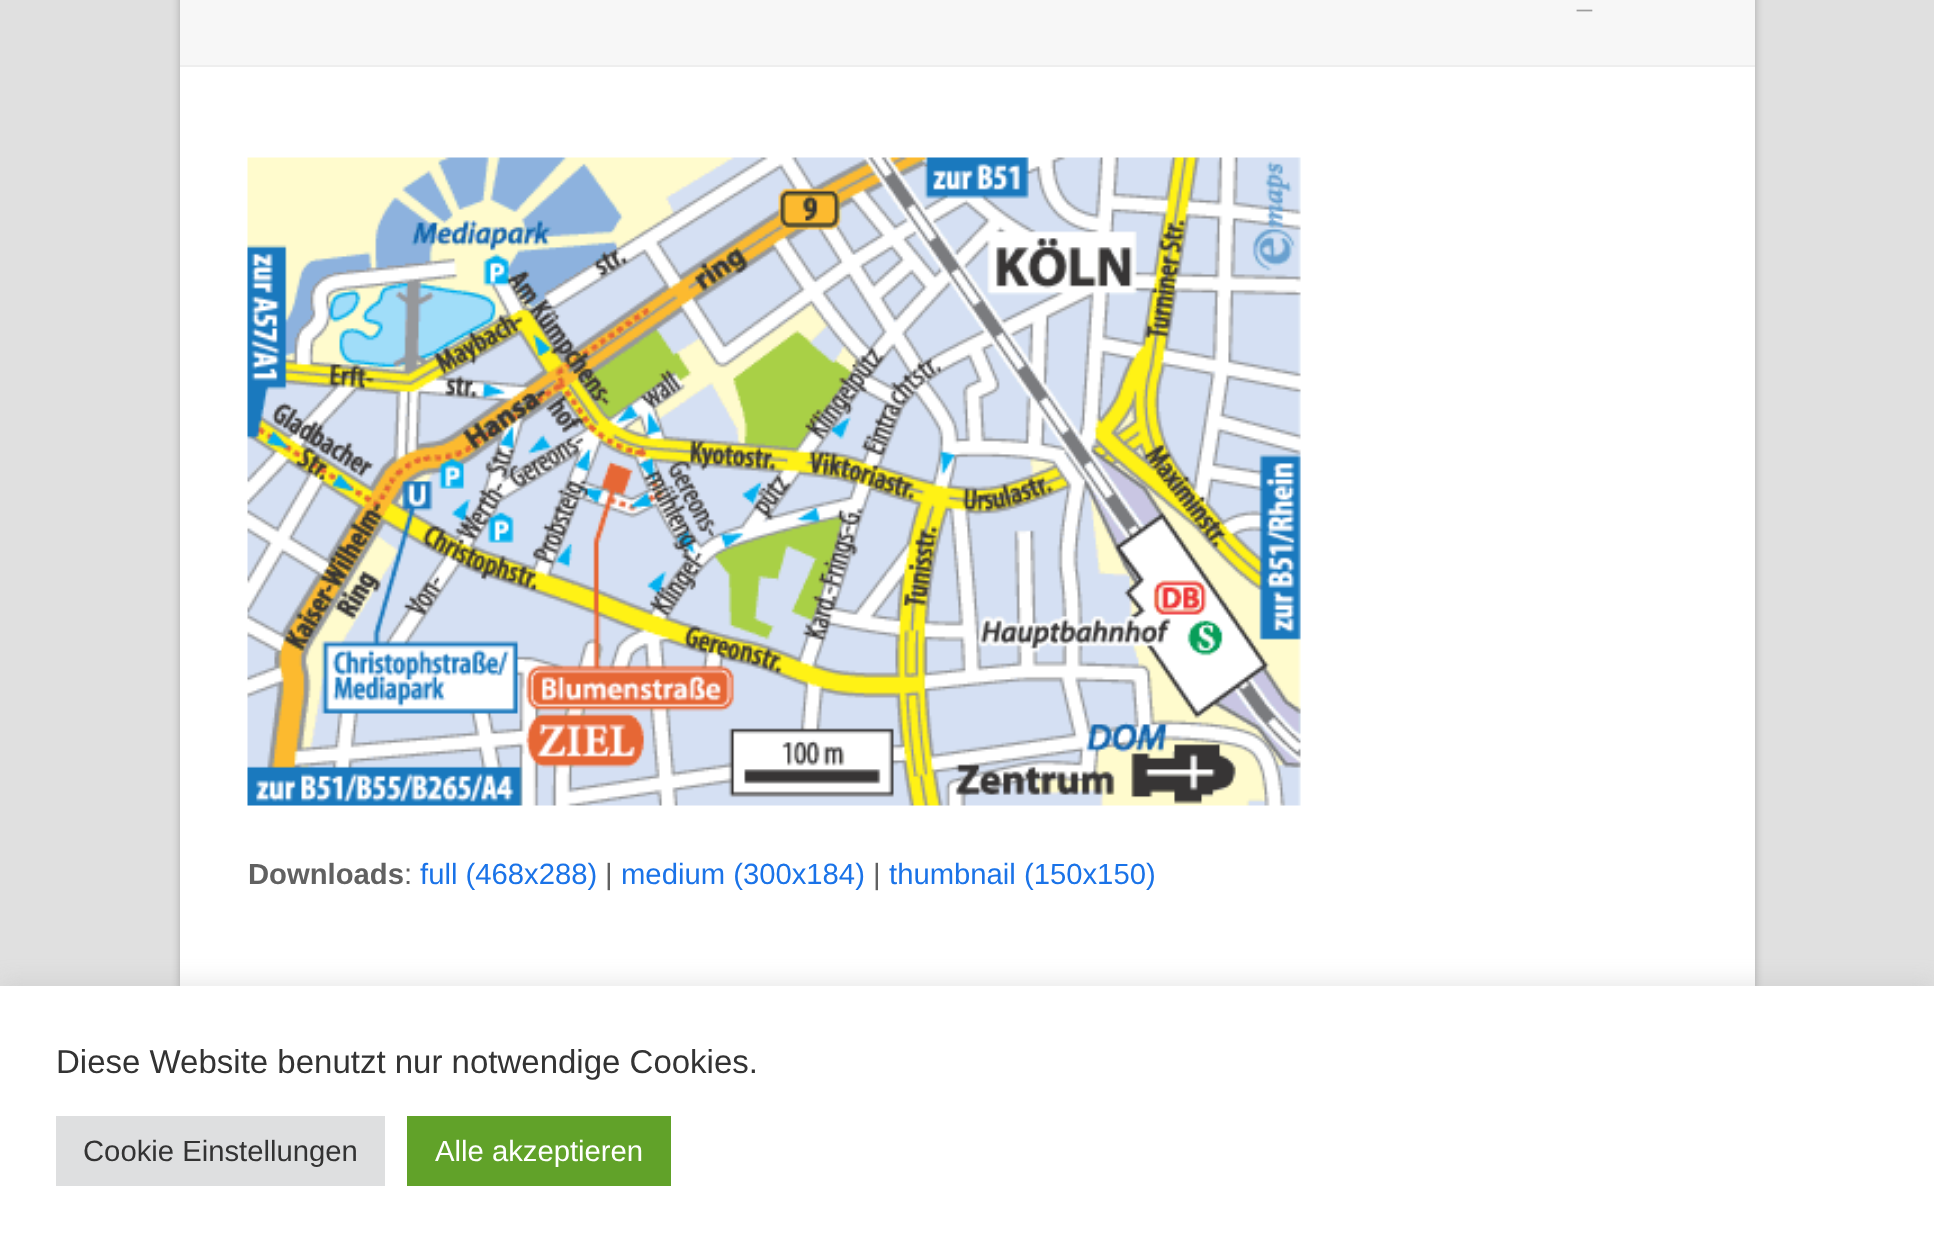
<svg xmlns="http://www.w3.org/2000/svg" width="1934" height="1253">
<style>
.a{font:27px Liberation Sans;fill:#9e9e9e}
.b{font:bold 29.25px Liberation Sans;fill:#616161}
.c{font:29.25px Liberation Sans;fill:#616161}
.d{font:29.25px Liberation Sans;fill:#1a73e8}
.e{font:33px Liberation Sans;fill:#333}
.f{font:29.25px Liberation Sans;fill:#333}
.g{font:29.25px Liberation Sans;fill:#fff}
</style>
<rect width="100%" height="100%" fill="#e0e0e0"/>
<path fill="#00000040" filter="blur(4.5px)" d="M180 -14h1575v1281H180z"/>
<path fill="#fff" d="M180 67h1575v919H180z"/>
<path fill="#f7f7f7" d="M180 0h1575v65H180z"/>
<path fill="#eee" d="M180 65h1575v2H180z"/>
<image href="1.png" x="247" y="157" width="1054" height="649"/>
<path fill="#acabab4d" filter="blur(11px)" d="M0 983h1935v268H0z"/>
<path fill="#fff" d="M0 986h1934v267H0z"/>
<path fill="#dedfe0" d="M56 1116h329v70H56z"/>
<path fill="#61a229" d="M407 1116h264v70H407z"/>
<text class="a" x="1577" y="6">_</text>
<text class="b" x="248" y="884">Downloads</text>
<text class="c" x="404" y="884">:</text>
<text class="d" x="420" y="884">full (468x288)</text>
<text class="c" x="605" y="884">|</text>
<text class="d" x="621" y="884">medium (300x184)</text>
<text class="c" x="873" y="884">|</text>
<text class="d" x="889" y="884">thumbnail (150x150)</text>
<text class="e" x="56" y="1073">Diese Website benutzt nur notwendige Cookies.</text>
<text class="f" x="83" y="1161">Cookie Einstellungen</text>
<text class="g" x="435" y="1161">Alle akzeptieren</text>
</svg>
